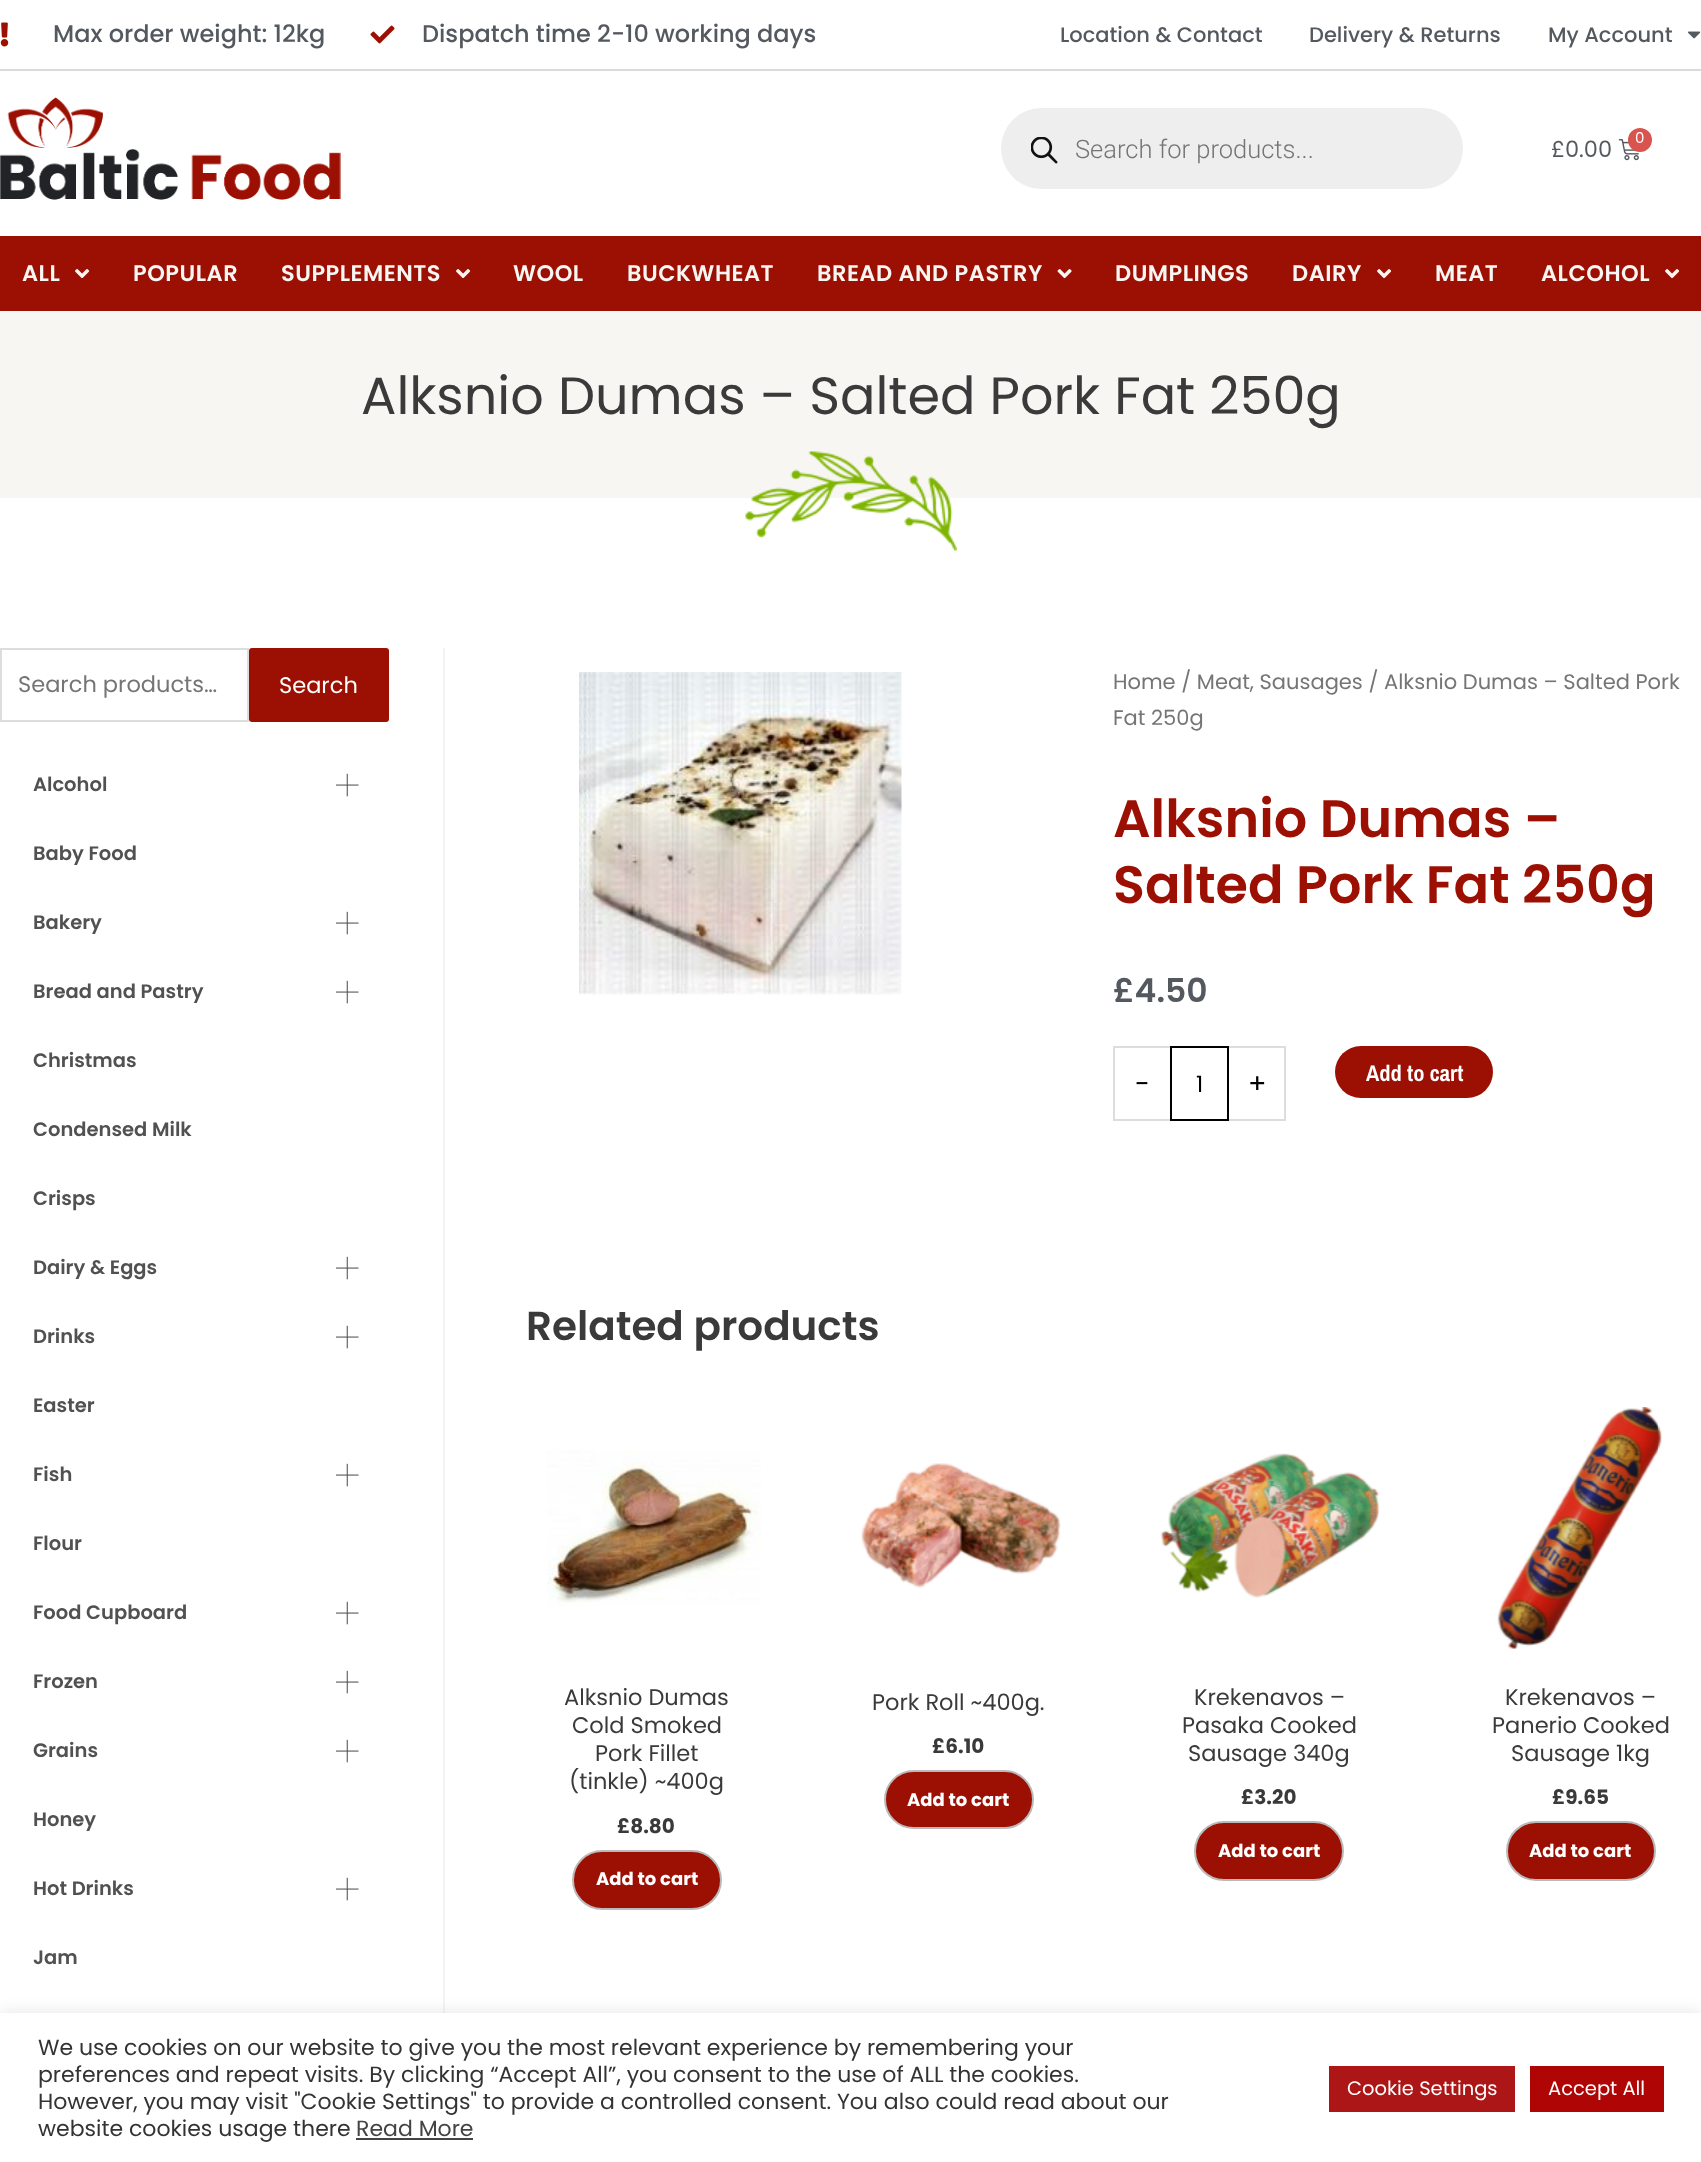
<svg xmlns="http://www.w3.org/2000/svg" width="1701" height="2162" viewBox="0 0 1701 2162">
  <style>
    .t1 { font: 500 24px Poppins; fill: #54595f; }
    .t2 { font: 500 21px Poppins; fill: #54595f; }
    .t3 { font: 300 25.5px Roboto; fill: #757575; }
    .t4 { font: 15px Poppins; fill: #fff; }
    .t5 { font: 22.5px Poppins; fill: #54595f; }
    .t6 { font: 600 22.5px Poppins; letter-spacing: 0.5px; fill: #f8f6f3; }
    .t7 { font: 52.5px Poppins; fill: #3a3a3a; }
    .t8 { font: 22.5px Poppins; fill: #757575; }
    .t9 { font: 22.5px Poppins; fill: #fff; }
    .t10 { font: 600 19.5px Poppins; fill: #515151; }
    .t11 { font: 21px Poppins; fill: #757575; }
    .t12 { font: 600 52.5px Poppins; fill: #9c1003; }
    .t13 { font: 600 33px Poppins; fill: #54595f; }
    .t14 { font: 27px Poppins; fill: #000; }
    .t15 { font: 22.5px Poppins; fill: #000; }
    .t16 { font: bold 22.5px Archivo Narrow; fill: #fff; }
    .t17 { font: 600 40.5px Poppins; fill: #3a3a3a; }
    .t18 { font: 22.5px Poppins; fill: #3a3a3a; }
    .t19 { font: bold 20px Poppins; fill: #3a3a3a; }
    .t20 { font: bold 18px Poppins; fill: #fff; }
    .t21 { font: 22px Poppins; fill: #333; }
    .t22 { font: 22px Poppins; fill: #444; }
    .t23 { font: 19.5px Poppins; fill: #fff; }
  </style>
  <rect width="100%" height="100%" fill="#fff"/>
  <rect x="0" y="69" width="1701" height="2" fill="#dadada"/>
  <image x="0" y="22" width="9" height="25" href="images/1.png"/>
  <text x="53" y="42" class="t1">Max order weight: 12kg</text>
  <image x="370" y="25" width="25" height="19" href="images/2.png"/>
  <text x="422" y="42" class="t1">Dispatch time 2-10 working days</text>
  <text x="1060" y="42" class="t2">Location &amp; Contact</text>
  <text x="1309" y="42" class="t2">Delivery &amp; Returns</text>
  <text x="1548" y="42" class="t2">My Account</text>
  <image x="1688" y="31" width="13" height="8" href="images/3.png"/>
  <image x="0" y="97" width="341" height="103" href="images/4.png"/>
  <rect x="1001" y="108" width="462" height="81" rx="40.5" fill="#eee"/>
  <image x="1031" y="137" width="27" height="27" href="images/5.png"/>
  <text x="1075" y="158" class="t3">Search for products...</text>
  <image x="1618" y="139" width="21" height="22" href="images/6.png"/>
  <circle cx="1640" cy="140" r="12" fill="#d9534f"/>
  <text x="1635" y="143" class="t4">0</text>
  <text x="1551" y="157" class="t5">£0.00</text>
  <rect x="0" y="236" width="1701" height="75" fill="#9c1003"/>
  <text x="22" y="281" class="t6">ALL</text>
  <image x="75" y="269" width="15" height="10" href="images/7.png"/>
  <text x="133" y="281" class="t6">POPULAR</text>
  <text x="281" y="281" class="t6">SUPPLEMENTS</text>
  <image x="456" y="269" width="15" height="10" href="images/7.png"/>
  <text x="513" y="281" class="t6">WOOL</text>
  <text x="627" y="281" class="t6">BUCKWHEAT</text>
  <text x="817" y="281" class="t6">BREAD AND PASTRY</text>
  <image x="1057" y="269" width="15" height="10" href="images/8.png"/>
  <text x="1115" y="281" class="t6">DUMPLINGS</text>
  <text x="1292" y="281" class="t6">DAIRY</text>
  <image x="1377" y="269" width="15" height="10" href="images/7.png"/>
  <text x="1435" y="281" class="t6">MEAT</text>
  <text x="1541" y="281" class="t6">ALCOHOL</text>
  <image x="1665" y="269" width="15" height="10" href="images/7.png"/>
  <rect x="0" y="311" width="1701" height="187" fill="#f8f6f3"/>
  <text x="361" y="414" class="t7">Alksnio Dumas – Salted Pork Fat 250g</text>
  <image x="745" y="451" width="212" height="100" href="images/9.png"/>
  <rect x="1" y="649" width="247" height="72" fill="none" stroke="#ddd" stroke-width="2"/>
  <text x="18" y="692" class="t8">Search products…</text>
  <rect x="249" y="648" width="140" height="74" rx="3" fill="#9c1003"/>
  <text x="279" y="693" class="t9">Search</text>
  <text x="33" y="791" class="t10">Alcohol</text>
  <image x="336" y="773" width="23" height="24" href="images/10.png"/>
  <text x="33" y="860" class="t10">Baby Food</text>
  <text x="33" y="929" class="t10">Bakery</text>
  <image x="336" y="911" width="23" height="24" href="images/10.png"/>
  <text x="33" y="998" class="t10">Bread and Pastry</text>
  <image x="336" y="980" width="23" height="24" href="images/10.png"/>
  <text x="33" y="1067" class="t10">Christmas</text>
  <text x="33" y="1136" class="t10">Condensed Milk</text>
  <text x="33" y="1205" class="t10">Crisps</text>
  <text x="33" y="1274" class="t10">Dairy &amp; Eggs</text>
  <image x="336" y="1256" width="23" height="24" href="images/10.png"/>
  <text x="33" y="1343" class="t10">Drinks</text>
  <image x="336" y="1325" width="23" height="24" href="images/10.png"/>
  <text x="33" y="1412" class="t10">Easter</text>
  <text x="33" y="1481" class="t10">Fish</text>
  <image x="336" y="1463" width="23" height="24" href="images/10.png"/>
  <text x="33" y="1550" class="t10">Flour</text>
  <text x="33" y="1619" class="t10">Food Cupboard</text>
  <image x="336" y="1601" width="23" height="24" href="images/10.png"/>
  <text x="33" y="1688" class="t10">Frozen</text>
  <image x="336" y="1670" width="23" height="24" href="images/10.png"/>
  <text x="33" y="1757" class="t10">Grains</text>
  <image x="336" y="1739" width="23" height="24" href="images/10.png"/>
  <text x="33" y="1826" class="t10">Honey</text>
  <text x="33" y="1895" class="t10">Hot Drinks</text>
  <image x="336" y="1877" width="23" height="24" href="images/10.png"/>
  <text x="33" y="1964" class="t10">Jam</text>
  <rect x="443" y="648" width="2" height="1365" fill="#f4f4f4"/>
  <image x="579" y="672" width="323" height="323" href="images/11.png"/>
  <text x="1113" y="689" class="t11">Home / Meat, Sausages / Alksnio Dumas – Salted Pork</text>
  <text x="1113" y="725" class="t11">Fat 250g</text>
  <text x="1113" y="837" class="t12">Alksnio Dumas –</text>
  <text x="1113" y="903" class="t12">Salted Pork Fat 250g</text>
  <text x="1113" y="1002" class="t13">£4.50</text>
  <rect x="1113" y="1046" width="57" height="2" fill="#ddd"/>
  <rect x="1113" y="1119" width="57" height="2" fill="#ddd"/>
  <rect x="1113" y="1046" width="2" height="75" fill="#ddd"/>
  <text x="1135" y="1093" class="t14">-</text>
  <rect x="1171" y="1047" width="57" height="73" fill="none" stroke="#000" stroke-width="2"/>
  <text x="1196" y="1092" class="t15">1</text>
  <rect x="1229" y="1046" width="57" height="2" fill="#ddd"/>
  <rect x="1284" y="1046" width="2" height="75" fill="#ddd"/>
  <rect x="1229" y="1119" width="57" height="2" fill="#ddd"/>
  <text x="1248" y="1093" class="t14">+</text>
  <rect x="1335" y="1046" width="158" height="52" rx="26" fill="#9c1003"/>
  <text x="1366" y="1081" class="t16">Add to cart</text>
  <text x="526" y="1340" class="t17">Related products</text>
  <image x="547" y="1450" width="214" height="156" href="images/12.png"/>
  <text x="564" y="1705" class="t18">Alksnio Dumas</text>
  <text x="572" y="1733" class="t18">Cold Smoked</text>
  <text x="595" y="1761" class="t18">Pork Fillet</text>
  <text x="569" y="1789" class="t18">(tinkle) ~400g</text>
  <text x="617" y="1833" class="t19">£8.80</text>
  <rect x="573" y="1851" width="148" height="58" rx="29" fill="#9c1003" stroke="#bababa" stroke-width="2"/>
  <text x="596" y="1885" class="t20">Add to cart</text>
  <image x="861" y="1463" width="200" height="125" href="images/13.png"/>
  <text x="872" y="1710" class="t18">Pork Roll ~400g.</text>
  <text x="932" y="1753" class="t19">£6.10</text>
  <rect x="885" y="1771" width="148" height="57" rx="28.5" fill="#9c1003" stroke="#bababa" stroke-width="2"/>
  <text x="907" y="1806" class="t20">Add to cart</text>
  <image x="1160" y="1453" width="220" height="145" href="images/14.png"/>
  <text x="1194" y="1705" class="t18">Krekenavos –</text>
  <text x="1182" y="1733" class="t18">Pasaka Cooked</text>
  <text x="1188" y="1761" class="t18">Sausage 340g</text>
  <text x="1241" y="1804" class="t19">£3.20</text>
  <rect x="1195" y="1822" width="148" height="58" rx="29" fill="#9c1003" stroke="#bababa" stroke-width="2"/>
  <text x="1218" y="1857" class="t20">Add to cart</text>
  <image x="1497" y="1407" width="165" height="242" href="images/15.png"/>
  <text x="1505" y="1705" class="t18">Krekenavos –</text>
  <text x="1492" y="1733" class="t18">Panerio Cooked</text>
  <text x="1511" y="1761" class="t18">Sausage 1kg</text>
  <text x="1552" y="1804" class="t19">£9.65</text>
  <rect x="1507" y="1822" width="148" height="58" rx="29" fill="#9c1003" stroke="#bababa" stroke-width="2"/>
  <text x="1529" y="1857" class="t20">Add to cart</text>
  <rect x="0" y="2012" width="1701" height="150" fill="#acabab4d" filter="blur(7.5px)"/>
  <rect x="0" y="2013" width="1701" height="149" fill="#fff"/>
  <text x="38" y="2055" class="t21">We use cookies on our website to give you the most relevant experience by remembering your</text>
  <text x="38" y="2082" class="t21">preferences and repeat visits. By clicking “Accept All”, you consent to the use of ALL the cookies.</text>
  <text x="38" y="2109" class="t21">However, you may visit "Cookie Settings" to provide a controlled consent. You also could read about our</text>
  <text x="38" y="2136" class="t21">website cookies usage there</text>
  <text x="356" y="2136" class="t22">Read More</text>
  <rect x="356" y="2138" width="117" height="2" fill="#444"/>
  <rect x="1329" y="2066" width="186" height="46" fill="#ad1616"/>
  <text x="1347" y="2095" class="t23">Cookie Settings</text>
  <rect x="1530" y="2066" width="134" height="46" fill="#af0505"/>
  <text x="1548" y="2095" class="t23">Accept All</text>
</svg>
